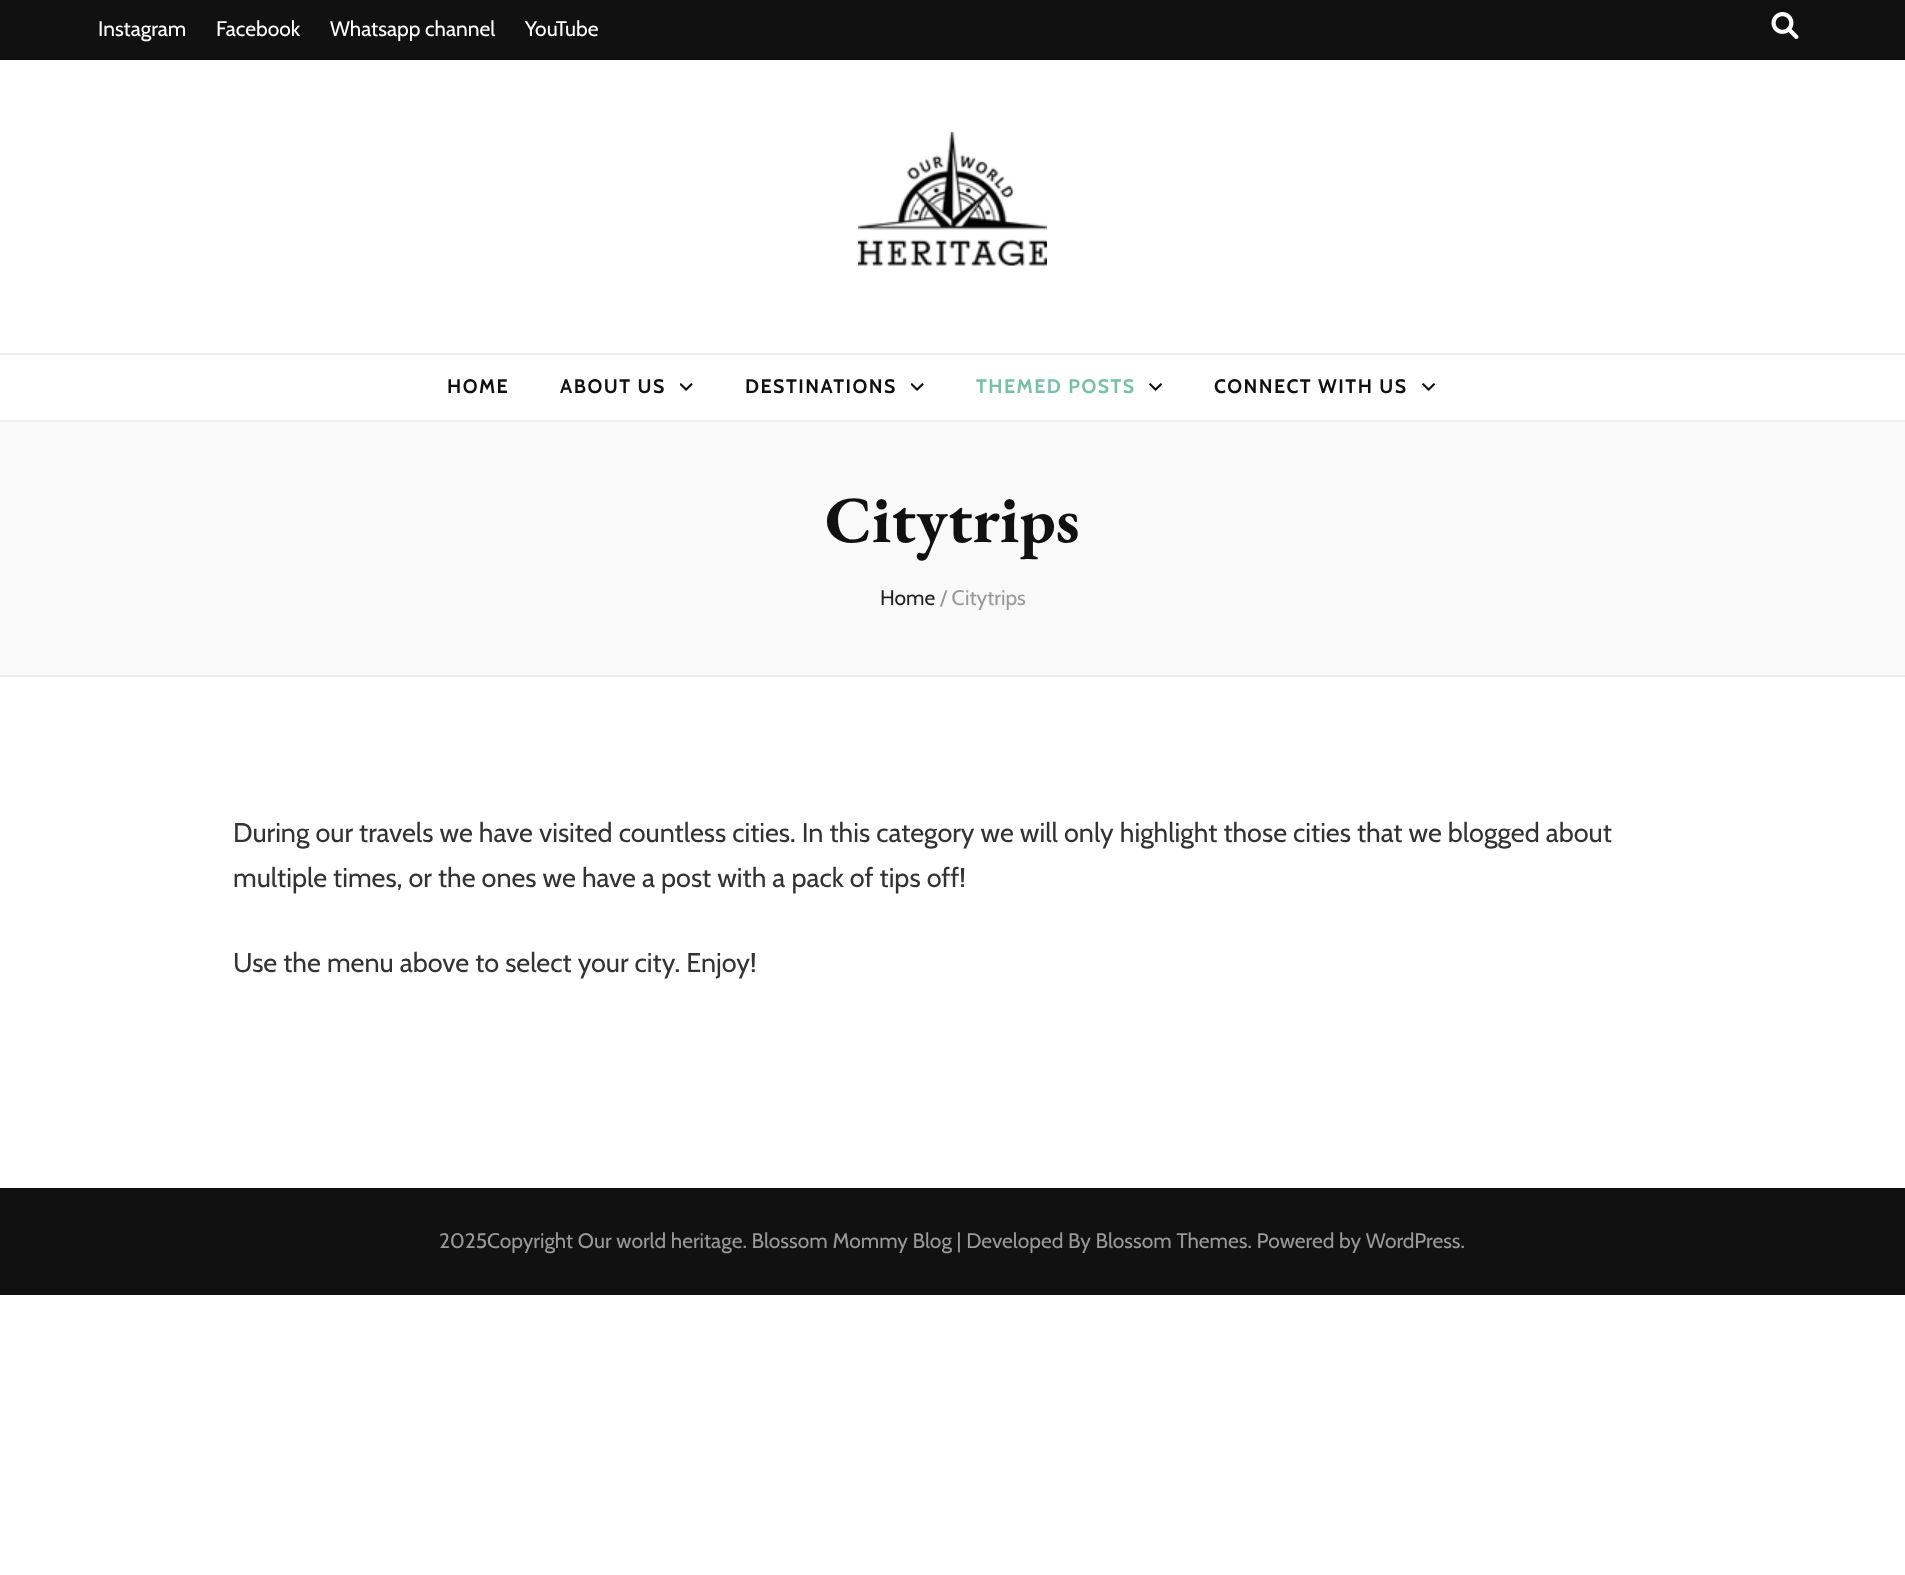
<svg xmlns="http://www.w3.org/2000/svg" width="1905" height="1575" viewBox="0 0 1905 1575">
  <style>
    .t1 { font: 21px Cabin; fill: #fff; }
    .t2 { font: bold 19.5px Cabin; letter-spacing: 1.5px; fill: #111; }
    .t3 { font: bold 19.5px Cabin; letter-spacing: 1.5px; fill: #78c0a8; }
    .t4 { font: bold 66px EB Garamond; fill: #111; }
    .t5 { font: 21px Cabin; fill: #222; }
    .t6 { font: 21px Cabin; fill: #999; }
    .t7 { font: 27px Cabin; fill: #333; }
  </style>
  <rect width="100%" height="100%" fill="#fff"/>
  <rect x="0" y="0" width="1905" height="60" fill="#111"/>
  <text x="98" y="36" class="t1">Instagram</text>
  <text x="216" y="36" class="t1">Facebook</text>
  <text x="330" y="36" class="t1">Whatsapp channel</text>
  <text x="525" y="36" class="t1">YouTube</text>
  <image x="1771" y="12" width="28" height="27" href="images/1.png"/>
  <image x="858" y="132" width="189" height="134" href="images/2.png"/>
  <rect x="0" y="353" width="1905" height="2" fill="#eee"/>
  <rect x="0" y="420" width="1905" height="2" fill="#eee"/>
  <text x="447" y="393" class="t2">HOME</text>
  <text x="560" y="393" class="t2">ABOUT US</text>
  <image x="680" y="383" width="13" height="8" href="images/3.png"/>
  <text x="745" y="393" class="t2">DESTINATIONS</text>
  <image x="911" y="383" width="13" height="8" href="images/3.png"/>
  <text x="976" y="393" class="t3">THEMED POSTS</text>
  <image x="1149" y="383" width="14" height="8" href="images/4.png"/>
  <text x="1214" y="393" class="t2">CONNECT WITH US</text>
  <image x="1422" y="383" width="14" height="8" href="images/4.png"/>
  <rect x="0" y="422" width="1905" height="253" fill="#f9f9f9"/>
  <rect x="0" y="675" width="1905" height="2" fill="#eee"/>
  <text x="825" y="542" class="t4">Citytrips</text>
  <text x="880" y="605" class="t5">Home</text>
  <text x="940" y="605" class="t6">/ Citytrips</text>
  <text x="233" y="842" class="t7">During our travels we have visited countless cities. In this category we will only highlight those cities that we blogged about</text>
  <text x="233" y="887" class="t7">multiple times, or the ones we have a post with a pack of tips off!</text>
  <text x="233" y="972" class="t7">Use the menu above to select your city. Enjoy!</text>
  <rect x="0" y="1188" width="1905" height="107" fill="#111"/>
  <text x="439" y="1248" class="t6">2025Copyright Our world heritage. Blossom Mommy Blog | Developed By Blossom Themes. Powered by WordPress.</text>
</svg>
